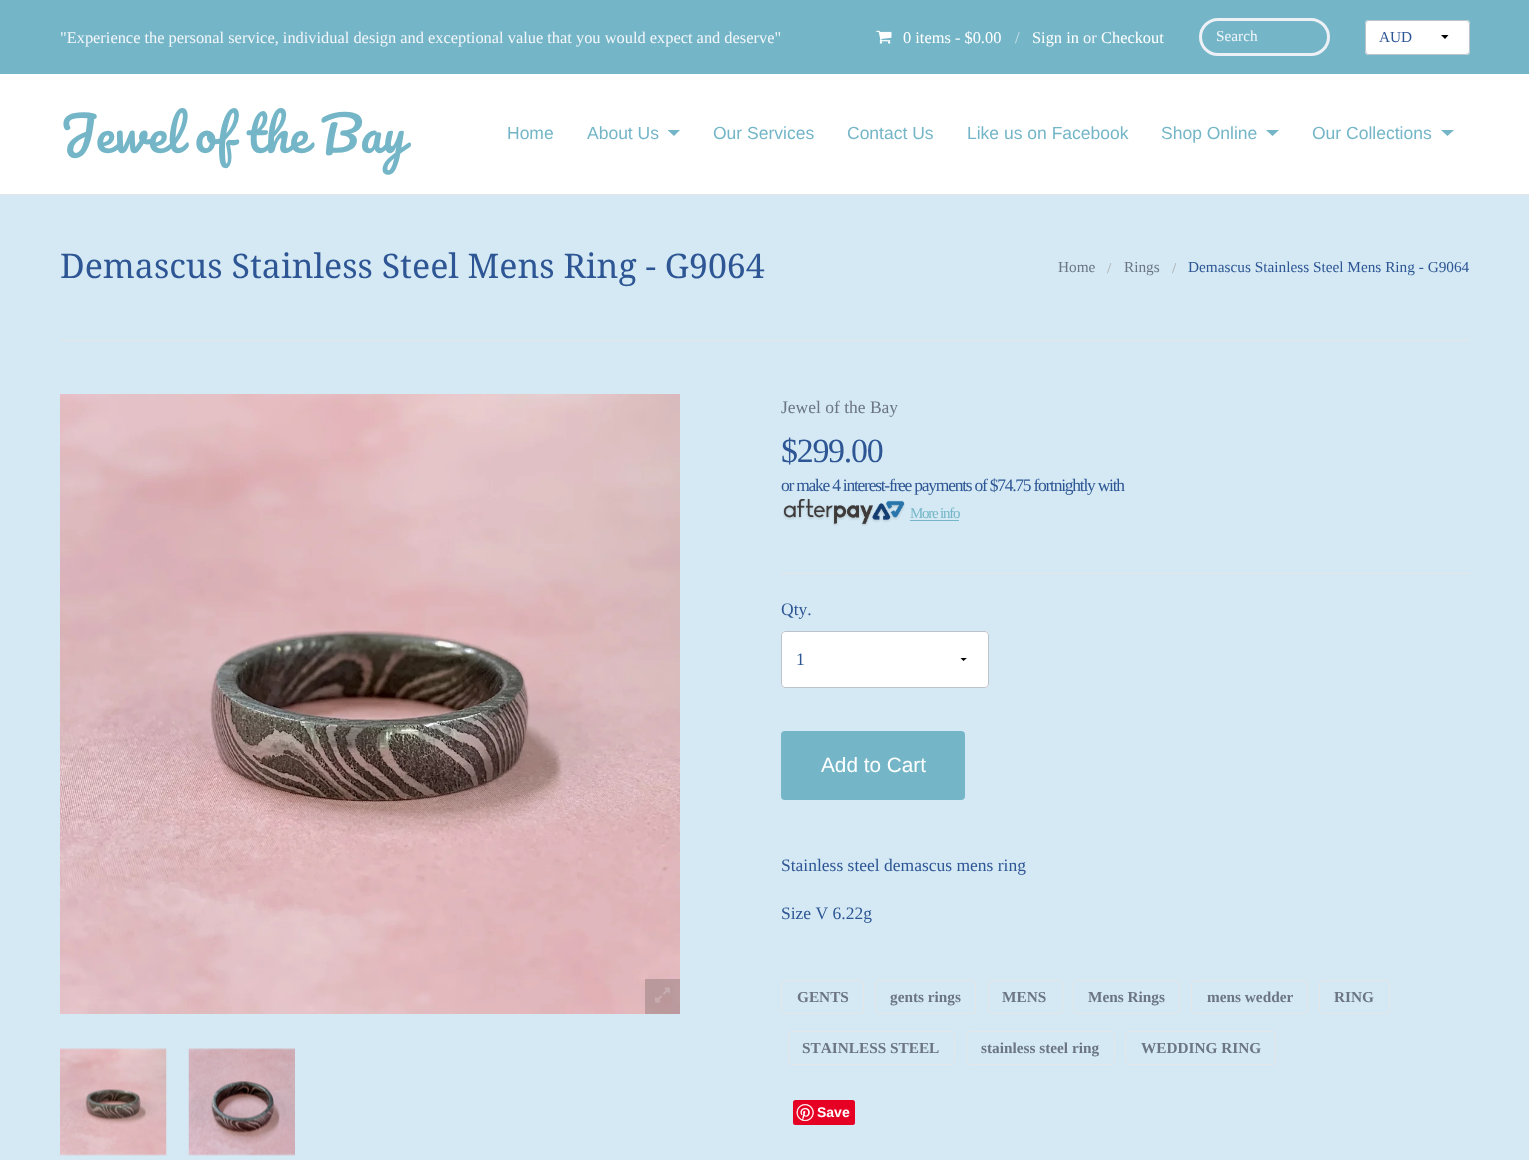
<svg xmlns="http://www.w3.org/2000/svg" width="1529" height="1160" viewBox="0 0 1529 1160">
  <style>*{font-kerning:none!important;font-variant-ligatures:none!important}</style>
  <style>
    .t1 { font: 16.4px Liberation Serif; fill: #f3f6fb; }
    .t2 { font: 16.4px Liberation Serif; fill: #fff; }
    .t3 { font: 16.4px Liberation Serif; fill: #cde3eb; }
    .t4 { font: 15.3px Liberation Serif; fill: #f3f6fb; }
    .t5 { font: 15.3px Liberation Serif; fill: #2e5694; }
    .t6 { font: 48px Pacifico; fill: #74b6c7; }
    .t7 { font: 17.5px Liberation Sans; fill: #74b6c7; }
    .t8 { font: 33.9px Droid Serif; fill: #2e5694; }
    .t9 { font: 15.3px Liberation Serif; fill: #6c7683; }
    .t10 { font: 15.3px Liberation Serif; fill: #aaa; }
    .t11 { font: 17.5px Liberation Serif; fill: #6c7683; }
    .t12 { font: 33.9px Liberation Serif; letter-spacing: -1.25px; fill: #2e5694; }
    .t13 { font: 17.5px Liberation Serif; letter-spacing: -1.25px; fill: #2e5694; }
    .t14 { font: 15px Liberation Serif; letter-spacing: -1.25px; fill: #74b6c7; }
    .t15 { font: 17.5px Liberation Serif; fill: #2e5694; }
    .t16 { font: 20.75px Liberation Sans; fill: #fff; }
    .t17 { font: bold 15.3px Liberation Serif; fill: #6c7683; }
    .t18 { font: bold 14px Liberation Sans; fill: #fff; }
  </style>
  <defs>
    <clipPath id="clip1"><rect x="949" y="658" width="30" height="4"/></clipPath>
  </defs>
  <rect width="100%" height="100%" fill="#74b6c7"/>
  <text x="60" y="43" class="t1">"Experience the personal service, individual design and exceptional value that you would expect and deserve"</text>
  <image x="876" y="30" width="16" height="14" href="images/1.png"/>
  <text x="903" y="43" class="t2">0 items - $0.00</text>
  <text x="1015" y="43" class="t3">/</text>
  <text x="1032" y="43" class="t2">Sign in</text>
  <text x="1083" y="43" class="t1">or</text>
  <text x="1101" y="43" class="t2">Checkout</text>
  <rect x="1200.5" y="19.5" width="128" height="35" rx="17.5" fill="none" stroke="#edf1f6" stroke-width="3"/>
  <text x="1216" y="41" class="t4">Search</text>
  <rect x="1365" y="20" width="105" height="35" rx="4" fill="#fff"/>
  <path d="M1448.5 35L1445 39L1441 35Z" fill="#000"/>
  <rect x="1365.5" y="20.5" width="104" height="34" rx="3.5" fill="none" stroke="#bcc3ca"/>
  <text x="1379" y="42" class="t5">AUD</text>
  <rect x="0" y="74" width="1529" height="120" fill="#fff"/>
  <rect x="0" y="194" width="1529" height="1" fill="#e4e5e6"/>
  <text x="60" y="153" word-spacing="-0.5" class="t6">Jewel of the Bay</text>
  <text x="507" y="139" class="t7">Home</text>
  <text x="587" y="139" class="t7">About Us</text>
  <path d="M667.5 130H680L674 136Z" fill="#74b6c7"/>
  <text x="713" y="139" class="t7">Our Services</text>
  <text x="847" y="139" class="t7">Contact Us</text>
  <text x="967" y="139" class="t7">Like us on Facebook</text>
  <text x="1161" y="139" class="t7">Shop Online</text>
  <path d="M1266 130H1279L1272.5 136Z" fill="#74b6c7"/>
  <text x="1312" y="139" class="t7">Our Collections</text>
  <path d="M1441 130H1454L1447.5 136Z" fill="#74b6c7"/>
  <rect x="0" y="195" width="1529" height="965" fill="#d4e9f4"/>
  <rect x="60" y="340" width="1410" height="1" fill="#e5e6e7"/>
  <text x="60" y="278" class="t8">Demascus Stainless Steel Mens Ring - G9064</text>
  <text x="1058" y="272" class="t9">Home</text>
  <text x="1107" y="273" class="t10">/</text>
  <text x="1124" y="272" class="t9">Rings</text>
  <text x="1172" y="273" class="t10">/</text>
  <text x="1188" y="272" class="t5">Demascus Stainless Steel Mens Ring - G9064</text>
  <image x="60" y="394" width="620" height="620" href="images/2.png"/>
  <rect x="645" y="979" width="35" height="35" fill="#22222233"/>
  <image x="655" y="987" width="15" height="16" href="images/3.png"/>
  <image x="60" y="1048" width="107" height="108" href="images/4.png"/>
  <image x="188" y="1048" width="107" height="108" href="images/5.png"/>
  <text x="781" y="413" class="t11">Jewel of the Bay</text>
  <rect x="781" y="573" width="689" height="1" fill="#e5e6e7"/>
  <text x="781" y="462" class="t12">$299.00</text>
  <text x="781" y="491" class="t13">or make 4 interest-free payments of $74.75 fortnightly with</text>
  <image x="783" y="499" width="122" height="27" href="images/6.png"/>
  <text x="910" y="518" class="t14">More info</text>
  <rect x="910" y="520" width="49" height="1" fill="#74b6c7"/>
  <text x="781" y="615" class="t15">Qty.</text>
  <rect x="781" y="631" width="208" height="57" rx="4" fill="#fff"/>
  <g clip-path="url(#clip1)">
    <path d="M967.5 657.5L963.5 661L960 657.5Z" fill="#000"/>
  </g>
  <rect x="781.5" y="631.5" width="207" height="56" rx="3.5" fill="none" stroke="#bcc3ca"/>
  <text x="796" y="665" class="t15">1</text>
  <rect x="781" y="731" width="184" height="69" rx="4" fill="#74b6c7"/>
  <text x="821" y="772" class="t16">Add to Cart</text>
  <text x="781" y="871" class="t15">Stainless steel demascus mens ring</text>
  <text x="781" y="919" class="t15">Size V 6.22g</text>
  <rect x="781.5" y="980.5" width="82" height="33" rx="3.5" fill="none" stroke="#e5e6e7"/>
  <text x="797" y="1002" class="t17">GENTS</text>
  <rect x="875.5" y="980.5" width="100" height="33" rx="3.5" fill="none" stroke="#e5e6e7"/>
  <text x="890" y="1002" class="t17">gents rings</text>
  <rect x="988.5" y="980.5" width="74" height="33" rx="3.5" fill="none" stroke="#e5e6e7"/>
  <text x="1002" y="1002" class="t17">MENS</text>
  <rect x="1073.5" y="980.5" width="106" height="33" rx="3.5" fill="none" stroke="#e5e6e7"/>
  <text x="1088" y="1002" class="t17">Mens Rings</text>
  <rect x="1191.5" y="980.5" width="116" height="33" rx="3.5" fill="none" stroke="#e5e6e7"/>
  <text x="1207" y="1002" class="t17">mens wedder</text>
  <rect x="1319.5" y="980.5" width="70" height="33" rx="3.5" fill="none" stroke="#e5e6e7"/>
  <text x="1334" y="1002" class="t17">RING</text>
  <rect x="788.5" y="1031.5" width="166" height="33" rx="3.5" fill="none" stroke="#e5e6e7"/>
  <text x="802" y="1053" class="t17">STAINLESS STEEL</text>
  <rect x="966.5" y="1031.5" width="148" height="33" rx="3.5" fill="none" stroke="#e5e6e7"/>
  <text x="981" y="1053" class="t17">stainless steel ring</text>
  <rect x="1125.5" y="1031.5" width="150" height="33" rx="3.5" fill="none" stroke="#e5e6e7"/>
  <text x="1141" y="1053" class="t17">WEDDING RING</text>
  <rect x="793" y="1100" width="62" height="25" rx="2.5" fill="#e60023"/>
  <image x="796" y="1104" width="18" height="17" href="images/7.png"/>
  <text x="817" y="1117" class="t18">Save</text>
</svg>
